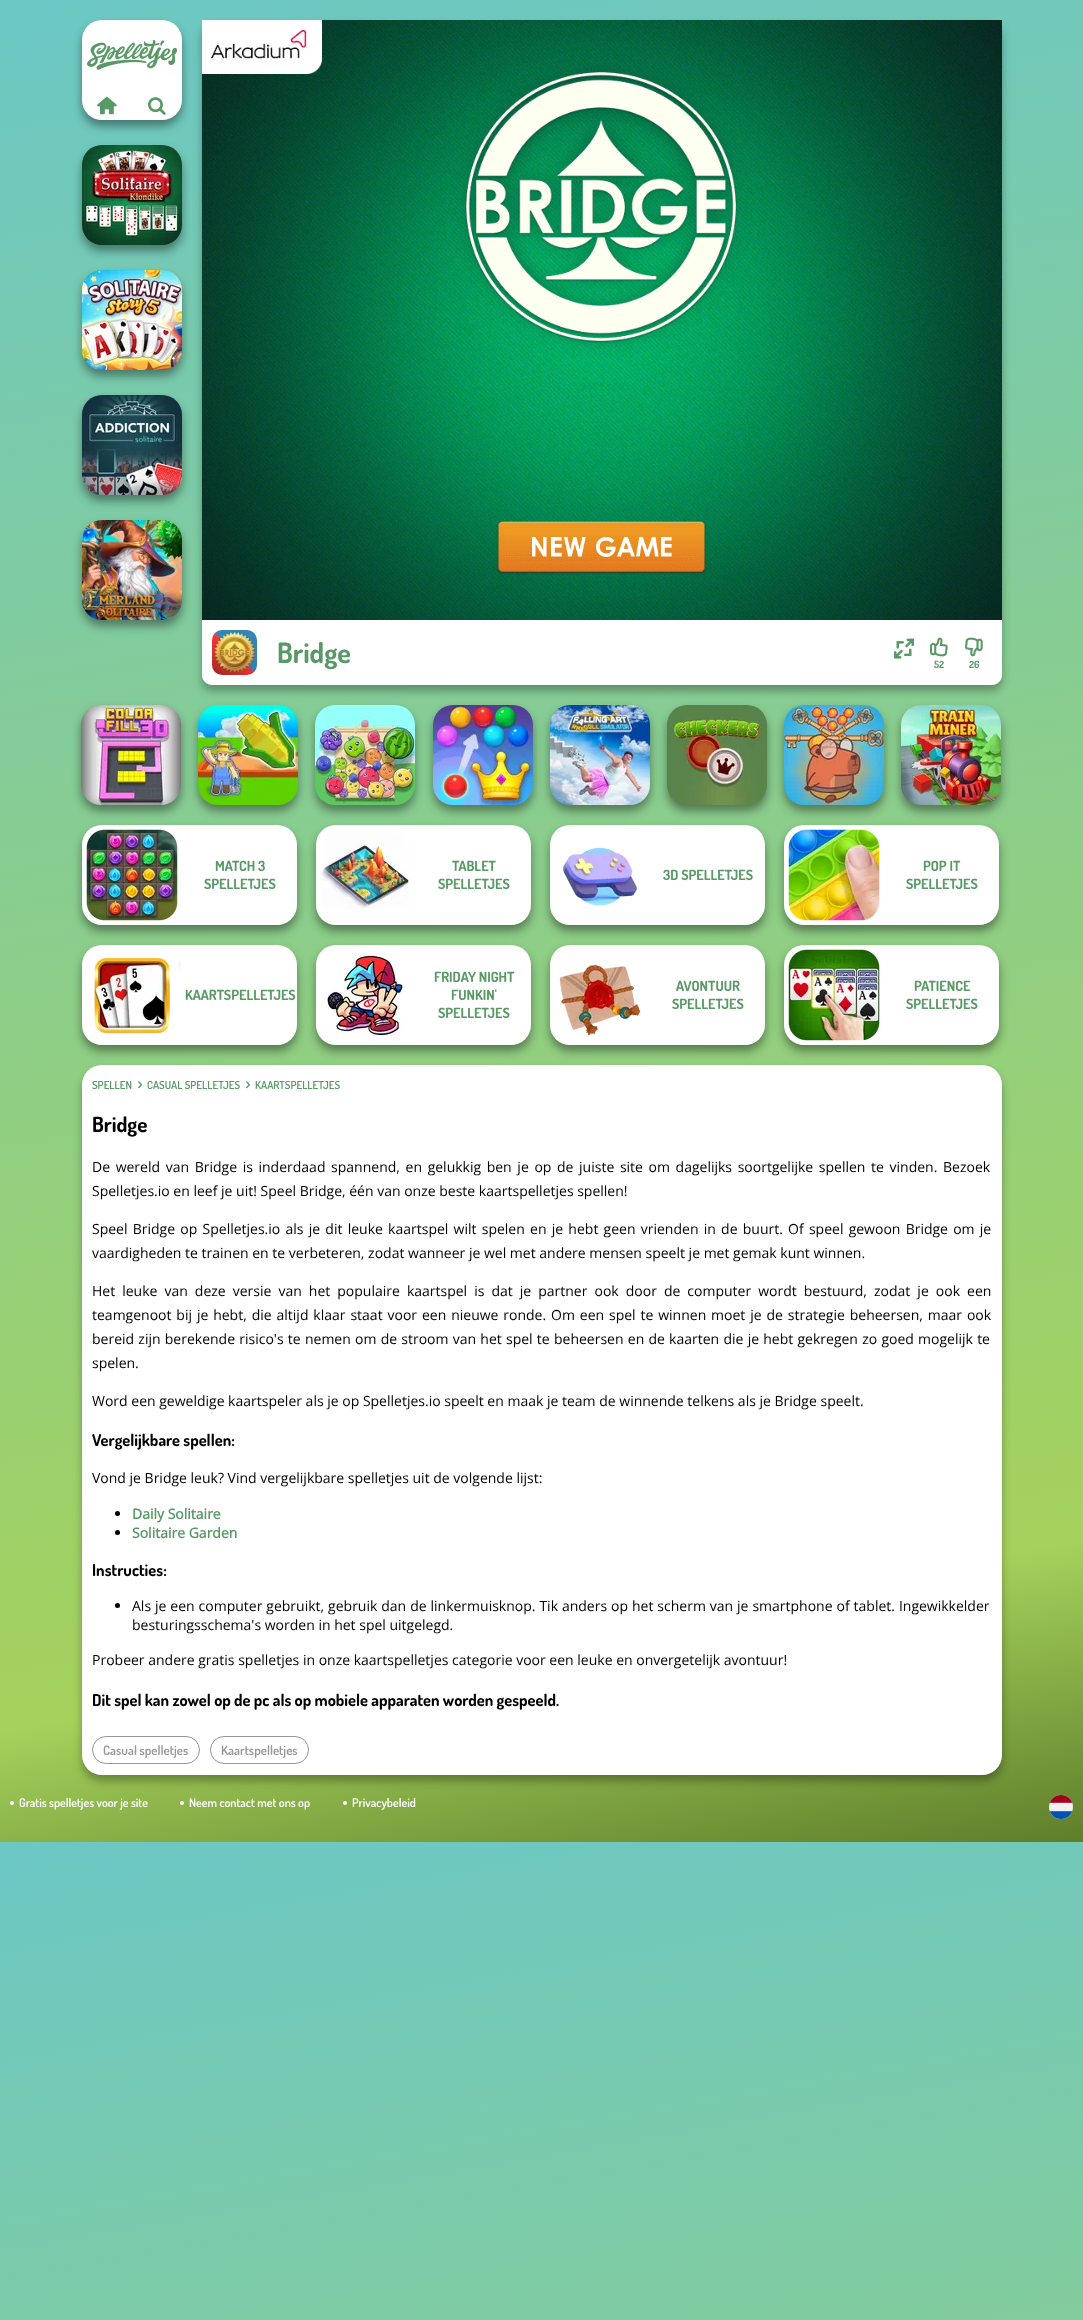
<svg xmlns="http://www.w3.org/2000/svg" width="1083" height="2320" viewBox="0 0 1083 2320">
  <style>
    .t1 { font: bold 28px Dosis; fill: #599966; }
    .t2 { font: bold 10px Dosis; fill: #599966; }
    .t3 { font: bold 14px Dosis; fill: #599966; }
    .t4 { font: 600 11px Dosis; fill: #599966; }
    .t5 { font: bold 21px Dosis; fill: #000; }
    .t6 { font: 14px Open Sans; fill: #000; }
    .t7 { font: bold 16.4px Dosis; fill: #000; }
    .t8 { font: bold 14px Open Sans; fill: #599966; }
    .t9 { font: 600 13px Dosis; fill: #979797; }
    .t10 { font: 600 12px Dosis; fill: #fff; }
  </style>
  <defs>
    <linearGradient id="g1" gradientUnits="userSpaceOnUse" x1="368" y1="-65" x2="715" y2="1907"><stop offset="0" stop-color="#6cc8c5"/><stop offset="0.85" stop-color="#a5d25c"/><stop offset="1" stop-color="#5f7e2a"/></linearGradient>
    <linearGradient id="g2" gradientUnits="userSpaceOnUse" x1="368" y1="1777" x2="715" y2="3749"><stop offset="0" stop-color="#6cc8c5"/><stop offset="0.85" stop-color="#a5d25c"/><stop offset="1" stop-color="#5f7e2a"/></linearGradient>
    <linearGradient id="g3" gradientUnits="userSpaceOnUse" x1="369" y1="-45" x2="714" y2="1907"><stop offset="0" stop-color="#6cc8c5"/><stop offset="0.85" stop-color="#a5d25c"/><stop offset="1" stop-color="#5f7e2a"/></linearGradient>
  </defs>
  <rect width="100%" height="100%" fill="#fff"/>
  <rect x="0" y="0" width="1083" height="20" fill="url(#g1)"/>
  <rect x="0" y="1842" width="1083" height="478" fill="url(#g2)"/>
  <rect x="0" y="20" width="1083" height="1822" fill="url(#g3)"/>
  <rect x="82" y="26" width="100" height="100" rx="20" fill="#00000066" filter="blur(5px)"/>
  <rect x="82" y="20" width="100" height="100" rx="20" fill="#fff"/>
  <image x="87" y="40" width="90" height="30" href="images/1.png"/>
  <image x="97" y="96" width="20" height="19" href="images/2.png"/>
  <image x="148" y="97" width="18" height="18" href="images/3.png"/>
  <rect x="82" y="151" width="100" height="100" rx="20" fill="#00000066" filter="blur(5px)"/>
  <image x="82" y="145" width="100" height="100" href="images/4.png"/>
  <rect x="82" y="276" width="100" height="100" rx="20" fill="#00000066" filter="blur(5px)"/>
  <image x="82" y="270" width="100" height="100" href="images/5.png"/>
  <rect x="82" y="401" width="100" height="100" rx="20" fill="#00000066" filter="blur(5px)"/>
  <image x="82" y="395" width="100" height="100" href="images/6.png"/>
  <rect x="82" y="526" width="100" height="100" rx="20" fill="#00000066" filter="blur(5px)"/>
  <image x="82" y="520" width="100" height="100" href="images/7.png"/>
  <rect x="202" y="26" width="800" height="665" rx="10" fill="#0000004d" filter="blur(4px)"/>
  <image x="202" y="20" width="800" height="600" href="images/8.png"/>
  <path d="M202 620H1002V675C1002 680.5 997.5 685 992 685H212C206.5 685 202 680.5 202 675Z" fill="#fff"/>
  <image x="212" y="630" width="45" height="45" href="images/9.png"/>
  <text x="277" y="663" class="t1">Bridge</text>
  <image x="894" y="638" width="20" height="21" href="images/10.png"/>
  <image x="930" y="637" width="18" height="20" href="images/11.png"/>
  <text x="934" y="668" class="t2">52</text>
  <image x="965" y="637" width="18" height="20" href="images/12.png"/>
  <text x="969" y="668" class="t2">26</text>
  <rect x="81" y="711" width="100" height="100" rx="20" fill="#00000066" filter="blur(5px)"/>
  <image x="81" y="705" width="100" height="100" href="images/13.png"/>
  <rect x="198" y="711" width="100" height="100" rx="20" fill="#00000066" filter="blur(5px)"/>
  <image x="198" y="705" width="100" height="100" href="images/14.png"/>
  <rect x="315" y="711" width="100" height="100" rx="20" fill="#00000066" filter="blur(5px)"/>
  <image x="315" y="705" width="100" height="100" href="images/15.png"/>
  <rect x="433" y="711" width="100" height="100" rx="20" fill="#00000066" filter="blur(5px)"/>
  <image x="433" y="705" width="100" height="100" href="images/16.png"/>
  <rect x="550" y="711" width="100" height="100" rx="20" fill="#00000066" filter="blur(5px)"/>
  <image x="550" y="705" width="100" height="100" href="images/17.png"/>
  <rect x="667" y="711" width="100" height="100" rx="20" fill="#00000066" filter="blur(5px)"/>
  <image x="667" y="705" width="100" height="100" href="images/18.png"/>
  <rect x="784" y="711" width="100" height="100" rx="20" fill="#00000066" filter="blur(5px)"/>
  <image x="784" y="705" width="100" height="100" href="images/19.png"/>
  <rect x="901" y="711" width="100" height="100" rx="20" fill="#00000066" filter="blur(5px)"/>
  <image x="901" y="705" width="100" height="100" href="images/20.png"/>
  <rect x="82" y="831" width="215" height="100" rx="20" fill="#00000066" filter="blur(5px)"/>
  <rect x="82" y="825" width="215" height="100" rx="20" fill="#fff"/>
  <image x="86" y="829" width="92" height="92" href="images/21.png"/>
  <text x="215" y="871" class="t3">MATCH 3</text>
  <text x="204" y="889" class="t3">SPELLETJES</text>
  <rect x="316" y="831" width="215" height="100" rx="20" fill="#00000066" filter="blur(5px)"/>
  <rect x="316" y="825" width="215" height="100" rx="20" fill="#fff"/>
  <image x="321" y="830" width="90" height="79" href="images/22.png"/>
  <text x="452" y="871" class="t3">TABLET</text>
  <text x="438" y="889" class="t3">SPELLETJES</text>
  <rect x="550" y="831" width="215" height="100" rx="20" fill="#00000066" filter="blur(5px)"/>
  <rect x="550" y="825" width="215" height="100" rx="20" fill="#fff"/>
  <image x="563" y="847" width="75" height="59" href="images/23.png"/>
  <text x="663" y="880" class="t3">3D SPELLETJES</text>
  <rect x="784" y="831" width="215" height="100" rx="20" fill="#00000066" filter="blur(5px)"/>
  <rect x="784" y="825" width="215" height="100" rx="20" fill="#fff"/>
  <image x="788" y="829" width="92" height="92" href="images/24.png"/>
  <text x="923" y="871" class="t3">POP IT</text>
  <text x="906" y="889" class="t3">SPELLETJES</text>
  <rect x="82" y="1071" width="920" height="710" rx="20" fill="#0000004d" filter="blur(4px)"/>
  <rect x="82" y="1065" width="920" height="710" rx="20" fill="#fff"/>
  <rect x="82" y="951" width="215" height="100" rx="20" fill="#00000066" filter="blur(5px)"/>
  <rect x="82" y="945" width="215" height="100" rx="20" fill="#fff"/>
  <image x="82" y="957" width="99" height="77" href="images/25.png"/>
  <text x="185" y="1000" class="t3">KAARTSPELLETJES</text>
  <rect x="316" y="951" width="215" height="100" rx="20" fill="#00000066" filter="blur(5px)"/>
  <rect x="316" y="945" width="215" height="100" rx="20" fill="#fff"/>
  <image x="324" y="953" width="80" height="84" href="images/26.png"/>
  <text x="434" y="982" class="t3">FRIDAY NIGHT</text>
  <text x="451" y="1000" class="t3">FUNKIN'</text>
  <text x="438" y="1018" class="t3">SPELLETJES</text>
  <rect x="550" y="951" width="215" height="100" rx="20" fill="#00000066" filter="blur(5px)"/>
  <rect x="550" y="945" width="215" height="100" rx="20" fill="#fff"/>
  <image x="559" y="964" width="82" height="72" href="images/27.png"/>
  <text x="676" y="991" class="t3">AVONTUUR</text>
  <text x="672" y="1009" class="t3">SPELLETJES</text>
  <rect x="784" y="951" width="215" height="100" rx="20" fill="#00000066" filter="blur(5px)"/>
  <rect x="784" y="945" width="215" height="100" rx="20" fill="#fff"/>
  <image x="788" y="949" width="92" height="92" href="images/28.png"/>
  <text x="914" y="991" class="t3">PATIENCE</text>
  <text x="906" y="1009" class="t3">SPELLETJES</text>
  <text x="92" y="1089" class="t4">SPELLEN</text>
  <image x="138" y="1081" width="4" height="8" href="images/29.png"/>
  <text x="147" y="1089" class="t4">CASUAL SPELLETJES</text>
  <image x="246" y="1081" width="4" height="8" href="images/29.png"/>
  <text x="255" y="1089" class="t4">KAARTSPELLETJES</text>
  <text x="92" y="1132" class="t5">Bridge</text>
  <text x="92" y="1172" word-spacing="2" class="t6">De wereld van Bridge is inderdaad spannend, en gelukkig ben je op de juiste site om dagelijks soortgelijke spellen te vinden. Bezoek</text>
  <text x="92" y="1196" class="t6">Spelletjes.io en leef je uit! Speel Bridge, één van onze beste kaartspelletjes spellen!</text>
  <text x="92" y="1234" word-spacing="1.6" class="t6">Speel Bridge op Spelletjes.io als je dit leuke kaartspel wilt spelen en je hebt geen vrienden in de buurt. Of speel gewoon Bridge om je</text>
  <text x="92" y="1258" class="t6">vaardigheden te trainen en te verbeteren, zodat wanneer je wel met andere mensen speelt je met gemak kunt winnen.</text>
  <text x="92" y="1296" word-spacing="3.4" class="t6">Het leuke van deze versie van het populaire kaartspel is dat je partner ook door de computer wordt bestuurd, zodat je ook een</text>
  <text x="92" y="1320" word-spacing="1.25" class="t6">teamgenoot bij je hebt, die altijd klaar staat voor een nieuwe ronde. Om een spel te winnen moet je de strategie beheersen, maar ook</text>
  <text x="92" y="1344" word-spacing="0.6" class="t6">bereid zijn berekende risico's te nemen om de stroom van het spel te beheersen en de kaarten die je hebt gekregen zo goed mogelijk te</text>
  <text x="92" y="1368" class="t6">spelen.</text>
  <text x="92" y="1406" class="t6">Word een geweldige kaartspeler als je op Spelletjes.io speelt en maak je team de winnende telkens als je Bridge speelt.</text>
  <text x="92" y="1446" class="t7">Vergelijkbare spellen:</text>
  <text x="92" y="1483" class="t6">Vond je Bridge leuk? Vind vergelijkbare spelletjes uit de volgende lijst:</text>
  <circle cx="117.5" cy="1513.5" r="2.5" fill="#000"/>
  <text x="132" y="1519" class="t8">Daily Solitaire</text>
  <circle cx="117.5" cy="1532.5" r="2.5" fill="#000"/>
  <text x="132" y="1538" class="t8">Solitaire Garden</text>
  <text x="92" y="1576" class="t7">Instructies:</text>
  <circle cx="117.5" cy="1605.5" r="2.5" fill="#000"/>
  <text x="132" y="1611" word-spacing="0.3" class="t6">Als je een computer gebruikt, gebruik dan de linkermuisknop. Tik anders op het scherm van je smartphone of tablet. Ingewikkelder</text>
  <text x="132" y="1630" class="t6">besturingsschema's worden in het spel uitgelegd.</text>
  <text x="92" y="1665" class="t6">Probeer andere gratis spelletjes in onze kaartspelletjes categorie voor een leuke en onvergetelijk avontuur!</text>
  <text x="92" y="1706" class="t7">Dit spel kan zowel op de pc als op mobiele apparaten worden gespeeld.</text>
  <rect x="92.5" y="1736.5" width="107" height="27" rx="13.5" fill="none" stroke="#979797"/>
  <text x="103" y="1755" class="t9">Casual spelletjes</text>
  <rect x="210.5" y="1736.5" width="98" height="27" rx="13.5" fill="none" stroke="#979797"/>
  <text x="221" y="1755" class="t9">Kaartspelletjes</text>
  <circle cx="12" cy="1803" r="2" fill="#fff"/>
  <text x="19" y="1807" class="t10">Gratis spelletjes voor je site</text>
  <circle cx="182" cy="1803" r="2" fill="#fff"/>
  <text x="189" y="1807" class="t10">Neem contact met ons op</text>
  <circle cx="345" cy="1803" r="2" fill="#fff"/>
  <text x="352" y="1807" class="t10">Privacybeleid</text>
  <image x="1049" y="1795" width="24" height="24" href="images/30.png"/>
</svg>
